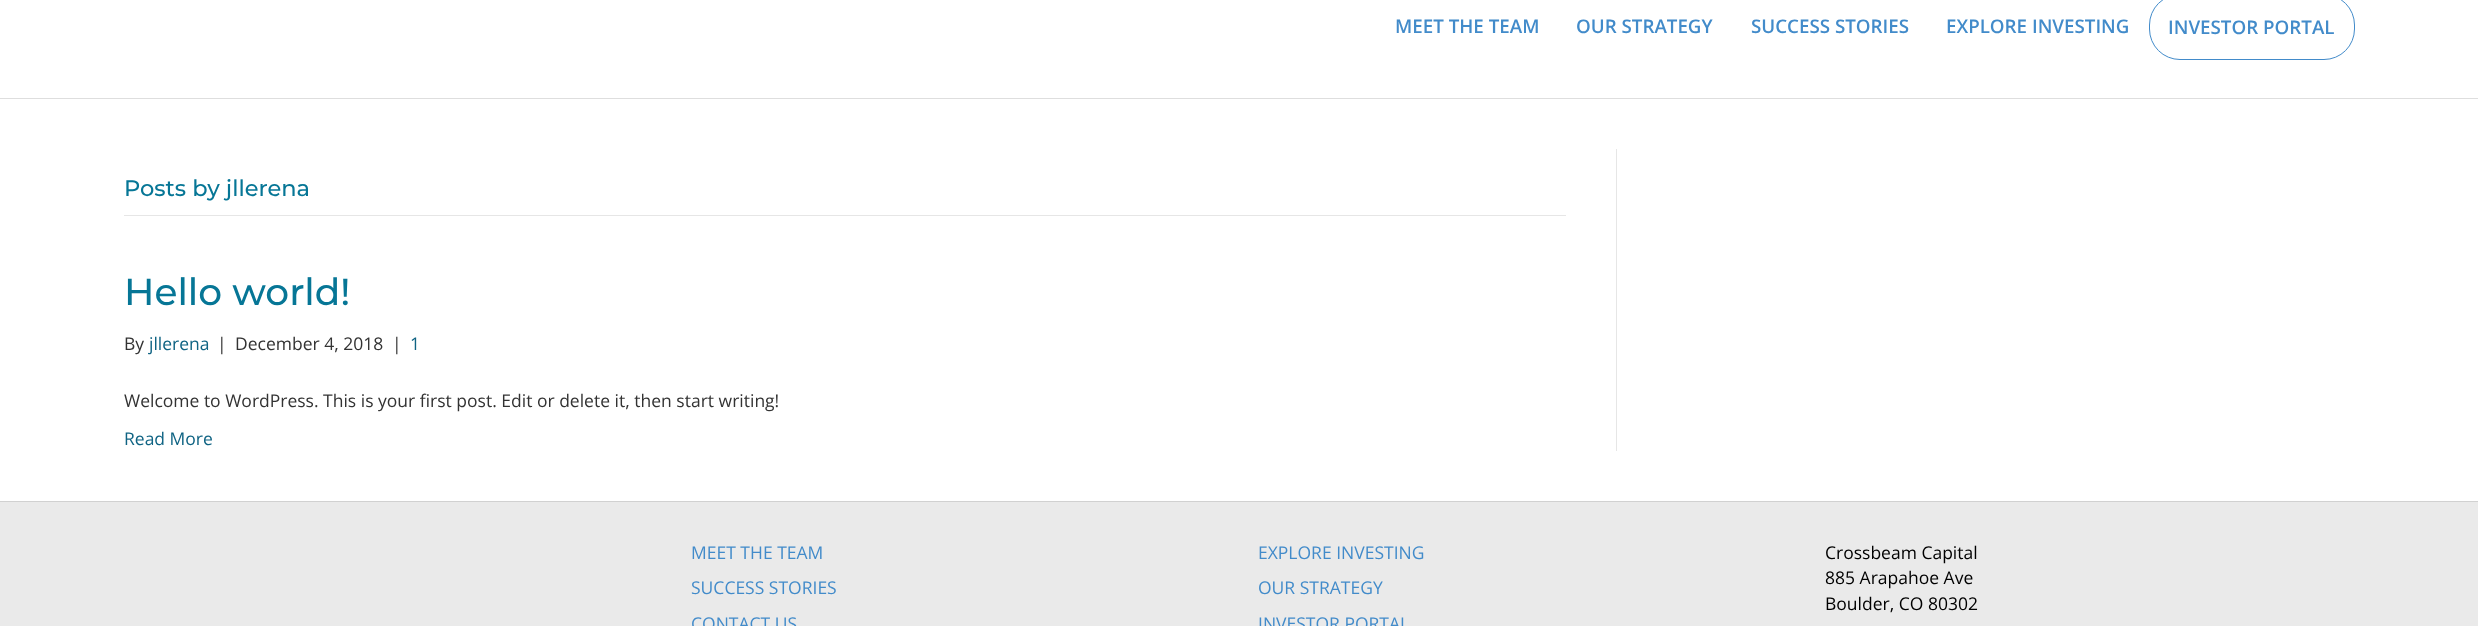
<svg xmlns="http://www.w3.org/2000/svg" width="2478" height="626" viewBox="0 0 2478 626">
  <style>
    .t1 { font: 600 18.75px Open Sans; fill: #428bca; }
    .t2 { font: 100 22.5px Montserrat; fill: #067696; }
    .t3 { font: 100 37.5px Montserrat; fill: #067696; }
    .t4 { font: 17.5px Open Sans; fill: #333; }
    .t5 { font: 17.5px Open Sans; fill: #0f6383; }
    .t6 { font: 17.5px Open Sans; fill: #428bca; }
    .t7 { font: 17.5px Open Sans; fill: #000; }
  </style>
  <rect width="100%" height="100%" fill="#fff"/>
  <rect x="0" y="98" width="2478" height="1" fill="#dedede"/>
  <text x="1395" y="33" class="t1">MEET THE TEAM</text>
  <text x="1576" y="33" class="t1">OUR STRATEGY</text>
  <text x="1751" y="33" class="t1">SUCCESS STORIES</text>
  <text x="1946" y="33" class="t1">EXPLORE INVESTING</text>
  <rect x="2149.5" y="-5.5" width="205" height="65" rx="30.5" fill="none" stroke="#428bca"/>
  <text x="2168" y="34" class="t1">INVESTOR PORTAL</text>
  <rect x="1616" y="149" width="1" height="302" fill="#e6e6e6"/>
  <rect x="124" y="215" width="1442" height="1" fill="#e6e6e6"/>
  <text x="124" y="196" class="t2">Posts by jllerena</text>
  <text x="124" y="305" class="t3">Hello world!</text>
  <text x="124" y="350" class="t4">By</text>
  <text x="149" y="350" class="t5">jllerena</text>
  <text x="217" y="350" class="t4">|</text>
  <text x="235" y="350" class="t4">December 4, 2018</text>
  <text x="392" y="350" class="t4">|</text>
  <text x="410" y="350" class="t5">1</text>
  <text x="124" y="407" class="t4">Welcome to WordPress. This is your first post. Edit or delete it, then start writing!</text>
  <text x="124" y="445" class="t5">Read More</text>
  <rect x="0" y="502" width="2478" height="124" fill="#eaeaea"/>
  <rect x="0" y="501" width="2478" height="1" fill="#d1d1d1"/>
  <text x="691" y="559" class="t6">MEET THE TEAM</text>
  <text x="691" y="594" class="t6">SUCCESS STORIES</text>
  <text x="691" y="630" class="t6">CONTACT US</text>
  <text x="1258" y="559" class="t6">EXPLORE INVESTING</text>
  <text x="1258" y="594" class="t6">OUR STRATEGY</text>
  <text x="1258" y="630" class="t6">INVESTOR PORTAL</text>
  <text x="1825" y="559" class="t7">Crossbeam Capital</text>
  <text x="1825" y="584" class="t7">885 Arapahoe Ave</text>
  <text x="1825" y="610" class="t7">Boulder, CO 80302</text>
</svg>
